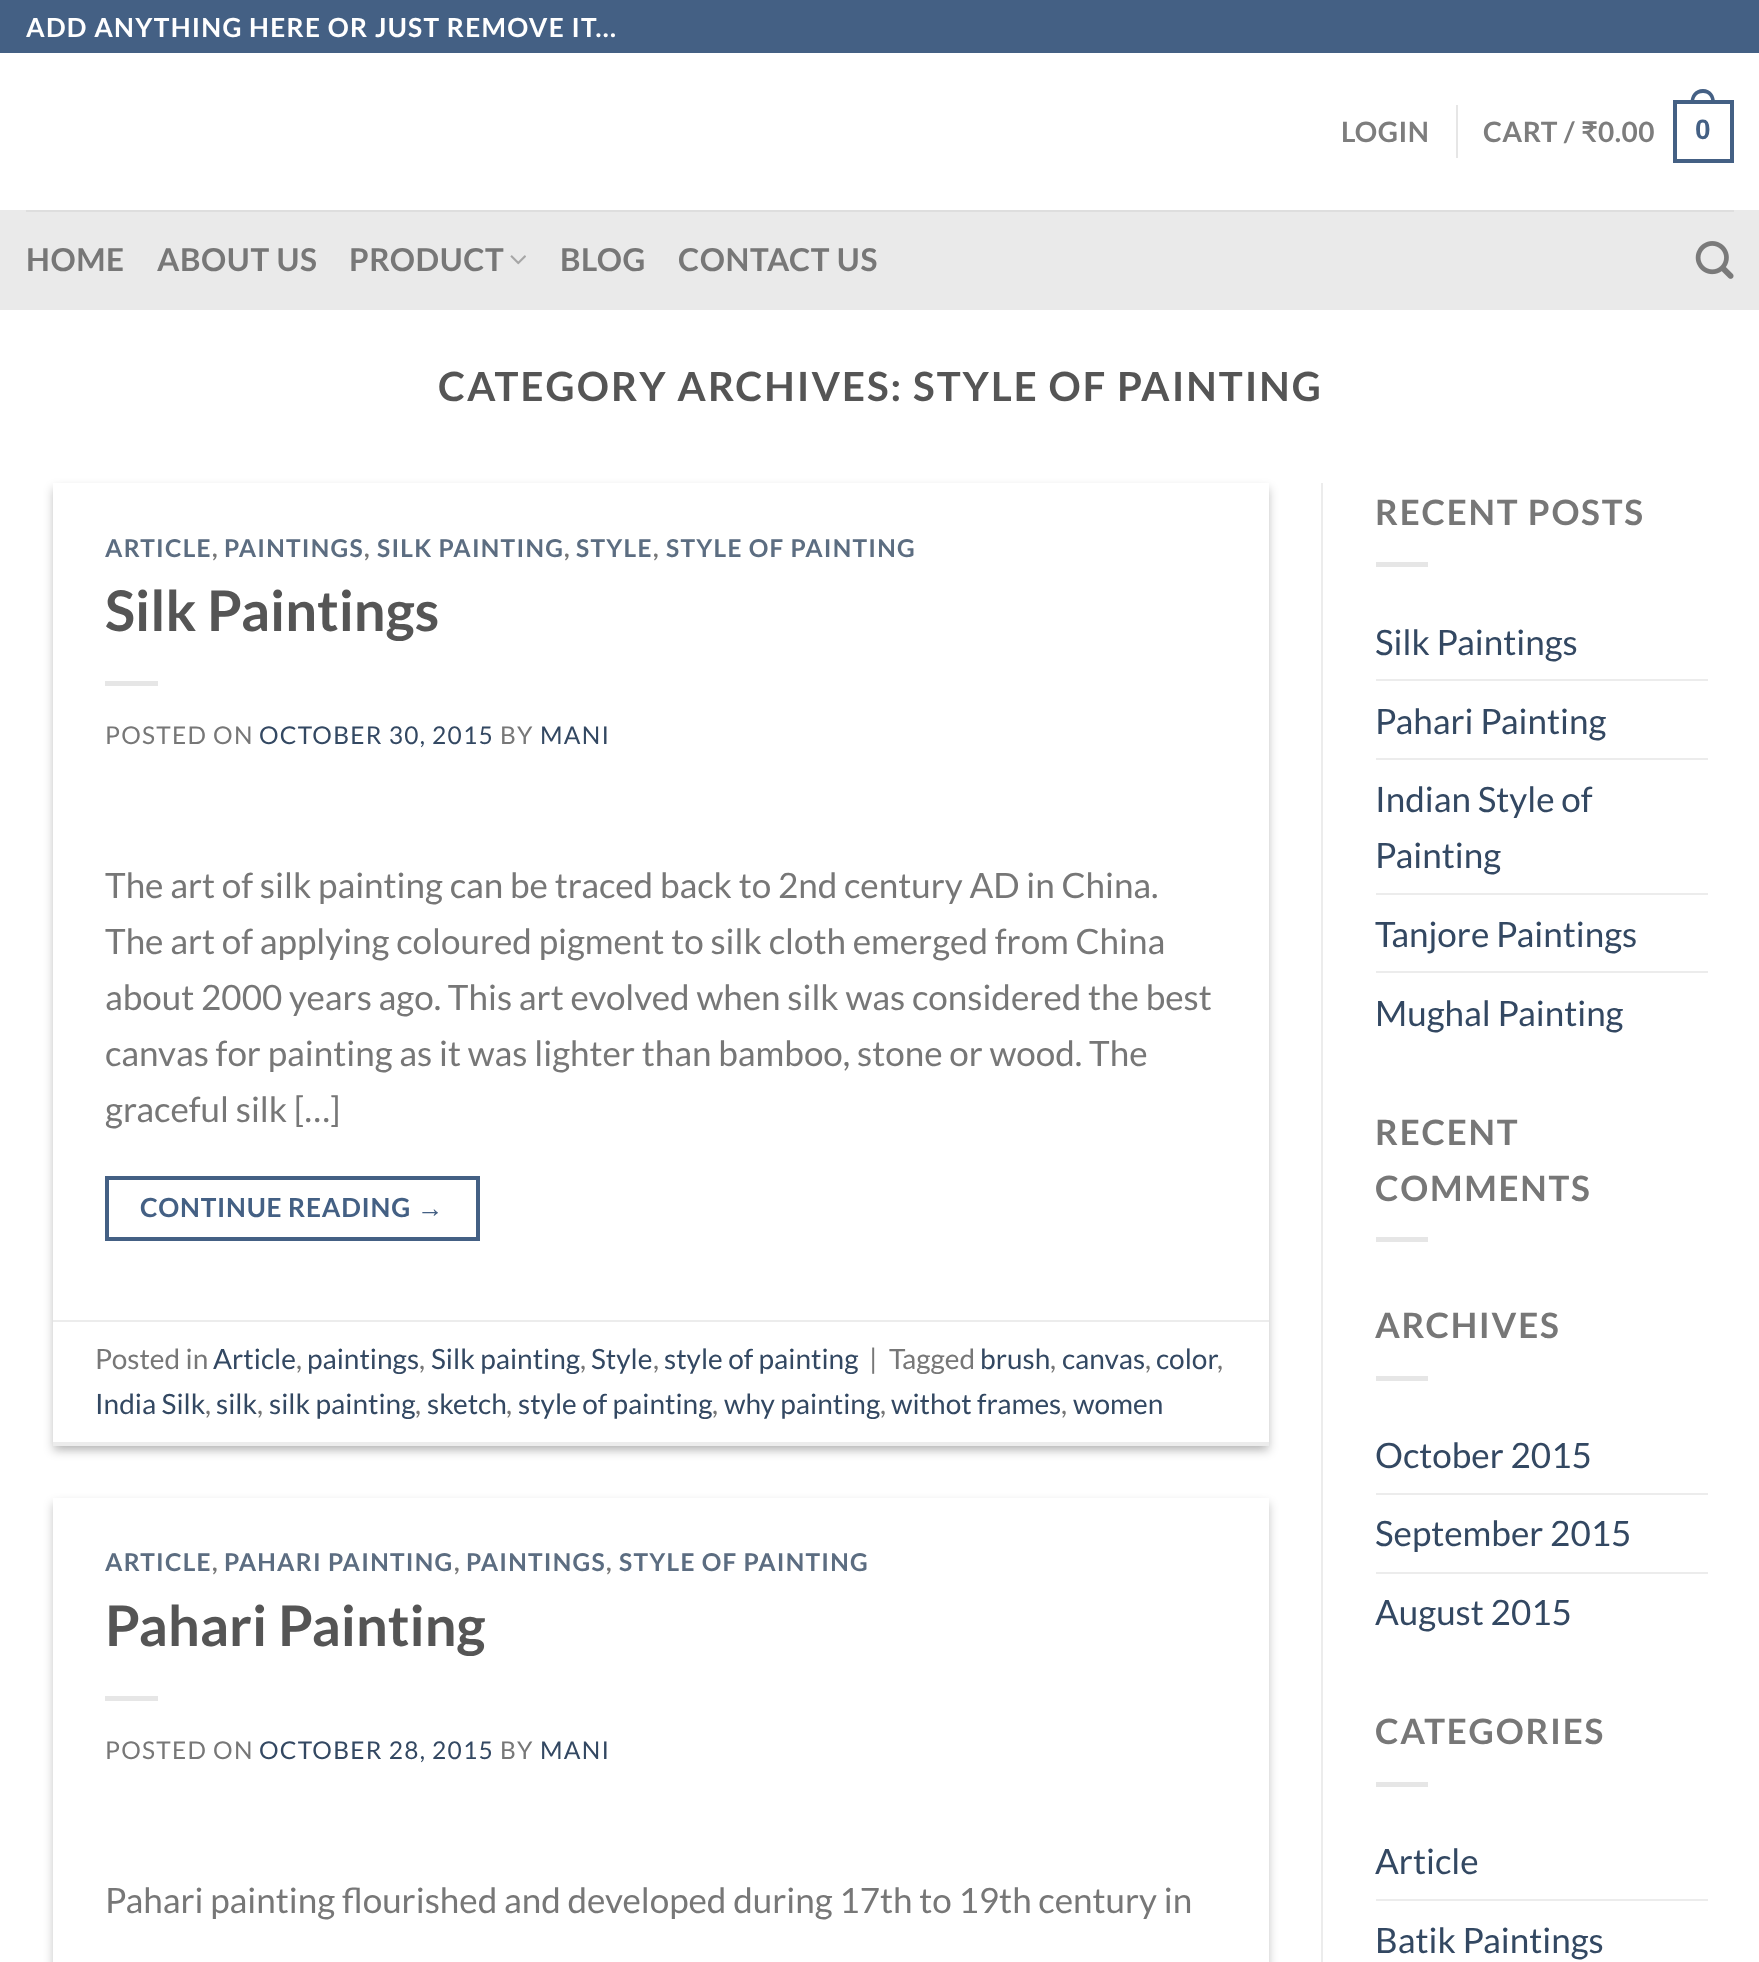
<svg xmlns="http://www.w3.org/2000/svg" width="1759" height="1962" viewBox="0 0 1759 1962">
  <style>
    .t1 { font: bold 26.25px Lato; letter-spacing: 1.3px; fill: #fff; }
    .t2 { font: bold 28px Lato; letter-spacing: 0.5px; fill: #7d7d7d; }
    .t3 { font: bold 28px 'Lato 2'; letter-spacing: 0.5px; fill: #7d7d7d; }
    .t4 { font: bold 28px Liberation Sans; letter-spacing: 0.5px; fill: #446084; }
    .t5 { font: bold 31.5px Lato; letter-spacing: 0.6px; fill: #777; }
    .t6 { font: bold 40.25px Lato; letter-spacing: 2px; fill: #555; }
    .t7 { font: bold 24.5px Lato; letter-spacing: 1.25px; fill: #5c6d81; }
    .t8 { font: bold 24.5px Lato; letter-spacing: 1.25px; fill: #777; }
    .t9 { font: bold 56px Lato; fill: #555; }
    .t10 { font: 24.5px Lato; letter-spacing: 1.25px; fill: #777; }
    .t11 { font: 24.5px Lato; letter-spacing: 1.25px; fill: #334862; }
    .t12 { font: 35px Lato; fill: #777; }
    .t13 { font: bold 26.25px Lato; letter-spacing: 0.75px; fill: #446084; }
    .t14 { font: bold 26.25px Liberation Sans; letter-spacing: 0.75px; fill: #446084; }
    .t15 { font: 28px Lato; fill: #777; }
    .t16 { font: 28px Lato; fill: #334862; }
    .t17 { font: bold 35px Lato; letter-spacing: 1.75px; fill: #777; }
    .t18 { font: 35px Lato; fill: #334862; }
  </style>
  <rect width="100%" height="100%" fill="#fff"/>
  <rect x="0" y="0" width="1759" height="53" fill="#446084"/>
  <text x="26" y="37" class="t1">ADD ANYTHING HERE OR JUST REMOVE IT...</text>
  <text x="1341" y="142" class="t2">LOGIN</text>
  <rect x="1456" y="105" width="2" height="53" fill="#e6e6e6"/>
  <text x="1483" y="142" class="t2">CART /</text>
  <text x="1581" y="142" class="t3">₹</text>
  <text x="1598" y="142" class="t2">0.00</text>
  <rect x="1675" y="102" width="57" height="59" fill="none" stroke="#446084" stroke-width="4"/>
  <path d="M1703 89C1711 89 1715 95.5 1715 103H1690.5C1690.5 95.5 1694.5 89 1703 89ZM1703 93C1709 93 1711.5 97.5 1711.5 103H1694C1694 97.5 1696.5 93 1703 93Z" fill="#446084" fill-rule="evenodd"/>
  <text x="1695" y="139" class="t4">0</text>
  <rect x="0" y="210" width="1759" height="100" fill="#eaeaea"/>
  <rect x="26" y="210" width="1708" height="2" fill="#dedede"/>
  <text x="26" y="271" class="t5">HOME</text>
  <text x="157" y="271" class="t5">ABOUT US</text>
  <text x="349" y="271" class="t5">PRODUCT</text>
  <image x="510" y="255" width="16" height="10" href="images/1.png"/>
  <text x="560" y="271" class="t5">BLOG</text>
  <text x="678" y="271" class="t5">CONTACT US</text>
  <image x="1695" y="241" width="39" height="38" href="images/2.png"/>
  <text x="438" y="401" class="t6">CATEGORY ARCHIVES: STYLE OF PAINTING</text>
  <rect x="53" y="488" width="1216" height="963" fill="#0000003b" filter="blur(5px)"/>
  <rect x="60" y="495" width="1202" height="949" fill="#00000029" filter="blur(5px)"/>
  <rect x="53" y="483" width="1216" height="959" fill="#fff"/>
  <text x="105" y="557" class="t7">ARTICLE</text>
  <text x="212" y="557" class="t8">,</text>
  <text x="224" y="557" class="t7">PAINTINGS</text>
  <text x="364" y="557" class="t8">,</text>
  <text x="377" y="557" class="t7">SILK PAINTING</text>
  <text x="564" y="557" class="t8">,</text>
  <text x="576" y="557" class="t7">STYLE</text>
  <text x="653" y="557" class="t8">,</text>
  <text x="666" y="557" class="t7">STYLE OF PAINTING</text>
  <text x="105" y="631" class="t9">Silk Paintings</text>
  <rect x="105" y="681" width="53" height="5" fill="#e6e6e6"/>
  <text x="105" y="744" class="t10">POSTED ON</text>
  <text x="259" y="744" class="t11">OCTOBER 30, 2015</text>
  <text x="500" y="744" class="t10">BY</text>
  <text x="540" y="744" class="t11">MANI</text>
  <text x="105" y="898" class="t12">The art of silk painting can be traced back to 2nd century AD in China.</text>
  <text x="105" y="954" class="t12">The art of applying coloured pigment to silk cloth emerged from China</text>
  <text x="105" y="1010" class="t12">about 2000 years ago. This art evolved when silk was considered the best</text>
  <text x="105" y="1066" class="t12">canvas for painting as it was lighter than bamboo, stone or wood. The</text>
  <text x="105" y="1122" class="t12">graceful silk […]</text>
  <rect x="107" y="1178" width="371" height="61" fill="none" stroke="#446084" stroke-width="4"/>
  <text x="140" y="1217" class="t13">CONTINUE READING</text>
  <text x="417" y="1217" class="t14">→</text>
  <rect x="53" y="1320" width="1216" height="2" fill="#ececec"/>
  <rect x="53" y="1442" width="1216" height="4" fill="#ececec"/>
  <text x="95" y="1369" class="t15">Posted in</text>
  <text x="213" y="1369" class="t16">Article</text>
  <text x="296" y="1369" class="t15">,</text>
  <text x="307" y="1369" class="t16">paintings</text>
  <text x="419" y="1369" class="t15">,</text>
  <text x="431" y="1369" class="t16">Silk painting</text>
  <text x="580" y="1369" class="t15">,</text>
  <text x="591" y="1369" class="t16">Style</text>
  <text x="653" y="1369" class="t15">,</text>
  <text x="664" y="1369" class="t16">style of painting</text>
  <text x="869" y="1369" class="t15">|</text>
  <text x="889" y="1369" class="t15">Tagged</text>
  <text x="980" y="1369" class="t16">brush</text>
  <text x="1050" y="1369" class="t15">,</text>
  <text x="1062" y="1369" class="t16">canvas</text>
  <text x="1145" y="1369" class="t15">,</text>
  <text x="1156" y="1369" class="t16">color</text>
  <text x="1217" y="1369" class="t15">,</text>
  <text x="95" y="1414" class="t16">India Silk</text>
  <text x="205" y="1414" class="t15">,</text>
  <text x="216" y="1414" class="t16">silk</text>
  <text x="257" y="1414" class="t15">,</text>
  <text x="269" y="1414" class="t16">silk painting</text>
  <text x="415" y="1414" class="t15">,</text>
  <text x="427" y="1414" class="t16">sketch</text>
  <text x="506" y="1414" class="t15">,</text>
  <text x="518" y="1414" class="t16">style of painting</text>
  <text x="712" y="1414" class="t15">,</text>
  <text x="724" y="1414" class="t16">why painting</text>
  <text x="880" y="1414" class="t15">,</text>
  <text x="891" y="1414" class="t16">withot frames</text>
  <text x="1061" y="1414" class="t15">,</text>
  <text x="1073" y="1414" class="t16">women</text>
  <rect x="53" y="1503" width="1216" height="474" fill="#0000003b" filter="blur(5px)"/>
  <rect x="53" y="1498" width="1216" height="464" fill="#fff"/>
  <text x="105" y="1571" class="t7">ARTICLE</text>
  <text x="212" y="1571" class="t8">,</text>
  <text x="224" y="1571" class="t7">PAHARI PAINTING</text>
  <text x="454" y="1571" class="t8">,</text>
  <text x="466" y="1571" class="t7">PAINTINGS</text>
  <text x="606" y="1571" class="t8">,</text>
  <text x="619" y="1571" class="t7">STYLE OF PAINTING</text>
  <text x="105" y="1646" class="t9">Pahari Painting</text>
  <rect x="105" y="1696" width="53" height="5" fill="#e6e6e6"/>
  <text x="105" y="1759" class="t10">POSTED ON</text>
  <text x="259" y="1759" class="t11">OCTOBER 28, 2015</text>
  <text x="500" y="1759" class="t10">BY</text>
  <text x="540" y="1759" class="t11">MANI</text>
  <text x="105" y="1913" class="t12">Pahari painting flourished and developed during 17th to 19th century in</text>
  <rect x="1321" y="483" width="2" height="1479" fill="#ececec"/>
  <text x="1375" y="525" class="t17">RECENT POSTS</text>
  <rect x="1376" y="562" width="52" height="5" fill="#e6e6e6"/>
  <text x="1375" y="655" class="t18">Silk Paintings</text>
  <rect x="1376" y="679" width="332" height="2" fill="#ececec"/>
  <text x="1375" y="734" class="t18">Pahari Painting</text>
  <rect x="1376" y="758" width="332" height="2" fill="#ececec"/>
  <text x="1375" y="812" class="t18">Indian Style of</text>
  <text x="1375" y="868" class="t18">Painting</text>
  <rect x="1376" y="893" width="332" height="2" fill="#ececec"/>
  <text x="1375" y="947" class="t18">Tanjore Paintings</text>
  <rect x="1376" y="971" width="332" height="2" fill="#ececec"/>
  <text x="1375" y="1026" class="t18">Mughal Painting</text>
  <text x="1375" y="1145" class="t17">RECENT</text>
  <text x="1375" y="1201" class="t17">COMMENTS</text>
  <rect x="1376" y="1237" width="52" height="5" fill="#e6e6e6"/>
  <text x="1375" y="1338" class="t17">ARCHIVES</text>
  <rect x="1376" y="1376" width="52" height="5" fill="#e6e6e6"/>
  <text x="1375" y="1468" class="t18">October 2015</text>
  <rect x="1376" y="1493" width="332" height="2" fill="#ececec"/>
  <text x="1375" y="1546" class="t18">September 2015</text>
  <rect x="1376" y="1572" width="332" height="2" fill="#ececec"/>
  <text x="1375" y="1625" class="t18">August 2015</text>
  <text x="1375" y="1744" class="t17">CATEGORIES</text>
  <rect x="1376" y="1782" width="52" height="5" fill="#e6e6e6"/>
  <text x="1375" y="1874" class="t18">Article</text>
  <rect x="1376" y="1899" width="332" height="2" fill="#ececec"/>
  <text x="1375" y="1953" class="t18">Batik Paintings</text>
</svg>
